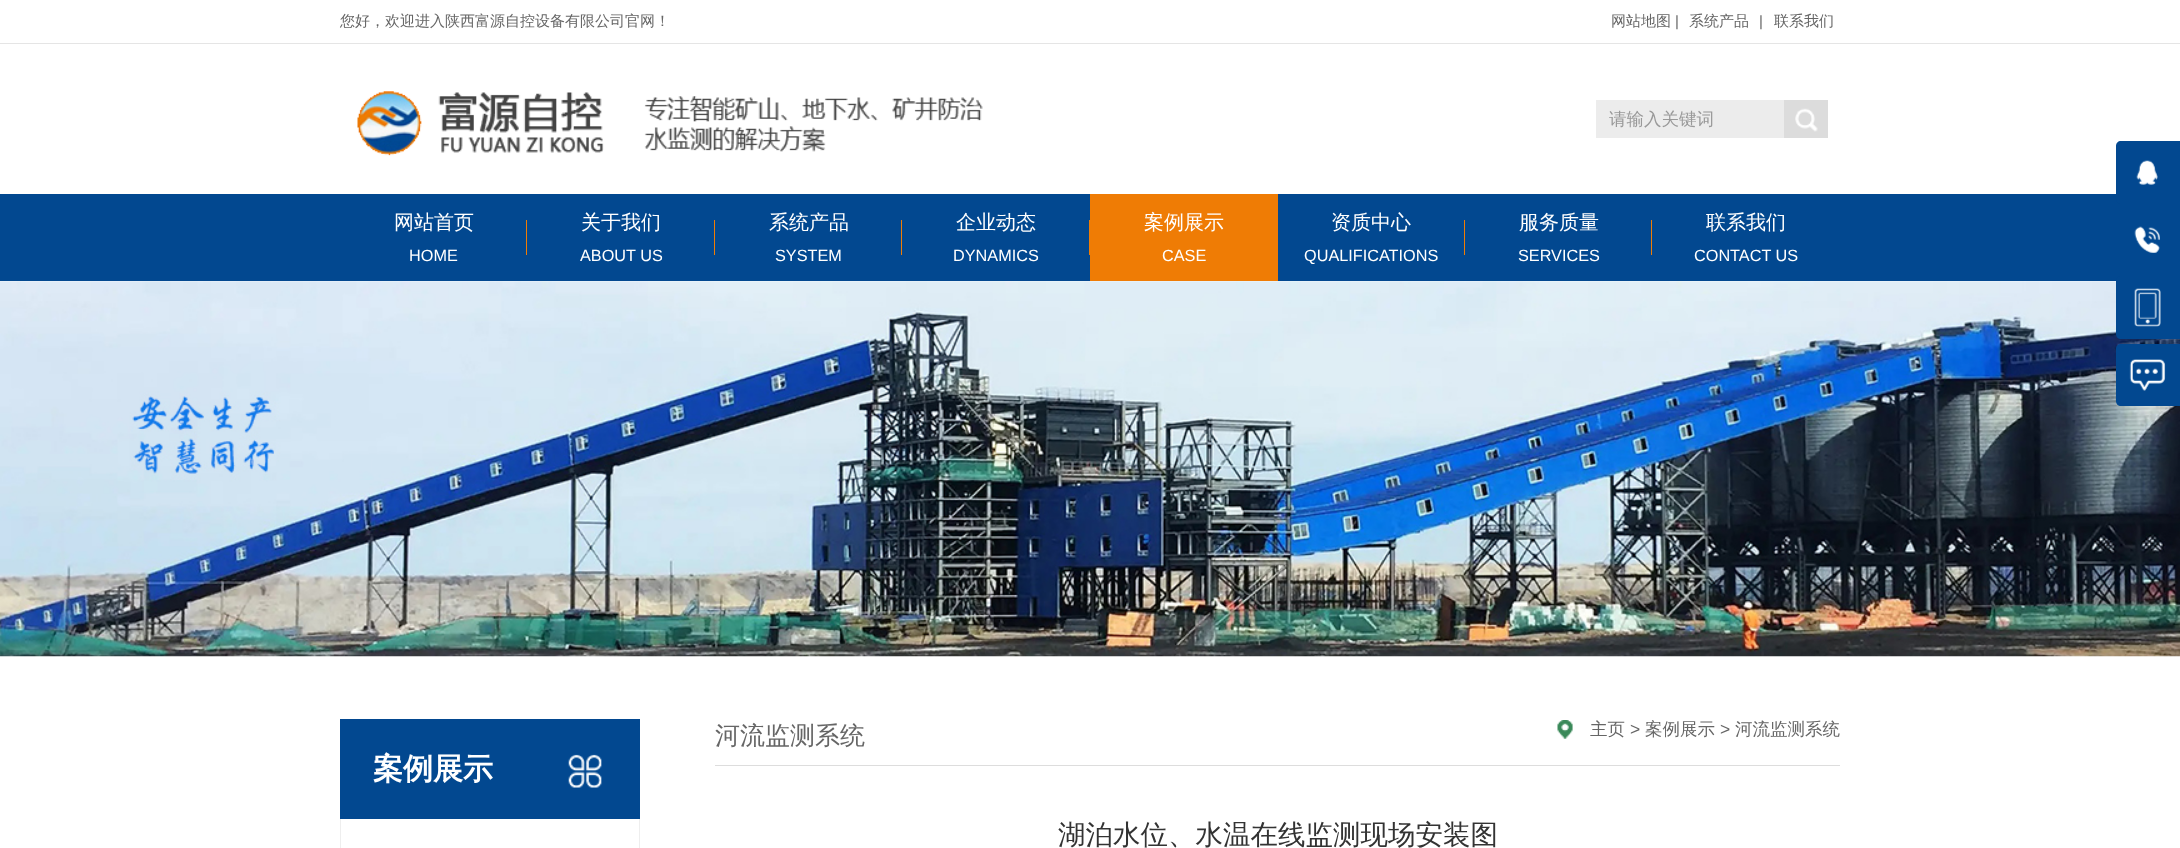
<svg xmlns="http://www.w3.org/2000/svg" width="2180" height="848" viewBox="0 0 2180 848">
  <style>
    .t1 { font: 500 15px WenQuanYi Zen Hei; fill: #666; }
    .t2 { font: 15px Liberation Sans; fill: #666; }
    .t3 { font: 500 17.5px WenQuanYi Zen Hei; fill: #999; }
    .t4 { font: 500 20px WenQuanYi Zen Hei; fill: #fff; }
    .t5 { font: 16.25px Liberation Sans; fill: #fff; }
    .t6 { font: bold 30px WenQuanYi Zen Hei; fill: #fff; }
    .t7 { font: 500 25px WenQuanYi Zen Hei; fill: #666; }
    .t8 { font: 500 17.5px WenQuanYi Zen Hei; fill: #666; }
    .t9 { font: 17.5px Liberation Sans; fill: #666; }
    .t10 { font: 500 27.5px WenQuanYi Zen Hei; fill: #333; }
  </style>
  <rect width="100%" height="100%" fill="#fff"/>
  <rect x="0" y="43" width="2180" height="1" fill="#e5e5e5"/>
  <text x="340" y="26" class="t1">您好，欢迎进入陕西富源自控设备有限公司官网！</text>
  <text x="1611" y="26" class="t1">网站地图</text>
  <text x="1675" y="26" class="t2">|</text>
  <text x="1689" y="26" class="t1">系统产品</text>
  <text x="1759" y="26" class="t2">|</text>
  <text x="1774" y="26" class="t1">联系我们</text>
  <image x="357" y="91" width="626" height="65" href="images/1.png"/>
  <rect x="1596" y="100" width="188" height="38" fill="#ececec"/>
  <text x="1609" y="125" class="t3">请输入关键词</text>
  <rect x="1784" y="100" width="44" height="38" fill="#dcdcdc"/>
  <image x="1795" y="108" width="23" height="24" href="images/2.png"/>
  <rect x="0" y="194" width="2180" height="87" fill="#024890"/>
  <text x="394" y="229" class="t4">网站首页</text>
  <rect x="526" y="220" width="1" height="35" fill="#ef7c05"/>
  <text x="409" y="261" class="t5">HOME</text>
  <text x="581" y="229" class="t4">关于我们</text>
  <rect x="714" y="220" width="1" height="35" fill="#ef7c05"/>
  <text x="580" y="261" class="t5">ABOUT US</text>
  <text x="769" y="229" class="t4">系统产品</text>
  <rect x="901" y="220" width="1" height="35" fill="#ef7c05"/>
  <text x="775" y="261" class="t5">SYSTEM</text>
  <text x="956" y="229" class="t4">企业动态</text>
  <rect x="1089" y="220" width="1" height="35" fill="#ef7c05"/>
  <text x="953" y="261" class="t5">DYNAMICS</text>
  <rect x="1090" y="194" width="188" height="87" fill="#ef7c05"/>
  <text x="1144" y="229" class="t4">案例展示</text>
  <text x="1162" y="261" class="t5">CASE</text>
  <text x="1331" y="229" class="t4">资质中心</text>
  <rect x="1464" y="220" width="1" height="35" fill="#ef7c05"/>
  <text x="1304" y="261" class="t5">QUALIFICATIONS</text>
  <text x="1519" y="229" class="t4">服务质量</text>
  <rect x="1651" y="220" width="1" height="35" fill="#ef7c05"/>
  <text x="1518" y="261" class="t5">SERVICES</text>
  <text x="1706" y="229" class="t4">联系我们</text>
  <text x="1694" y="261" class="t5">CONTACT US</text>
  <path d="M2121 141H2180V204H2121C2118 204 2116 202 2116 199V146C2116 143 2118 141 2121 141Z" fill="#024890"/>
  <image x="2136" y="160" width="22" height="25" href="images/3.png"/>
  <image x="2134" y="226" width="26" height="27" href="images/4.png"/>
  <image x="0" y="281" width="2180" height="376" href="images/7.png"/>
  <path d="M2121 276H2180V339H2121C2118 339 2116 337 2116 334V281C2116 278 2118 276 2121 276Z" fill="#024890"/>
  <image x="2134" y="288" width="27" height="39" href="images/5.png"/>
  <path d="M2121 344H2180V406H2121C2118 406 2116 404 2116 401V349C2116 346 2118 344 2121 344Z" fill="#024890"/>
  <image x="2129" y="359" width="37" height="32" href="images/6.png"/>
  <rect x="340" y="719" width="300" height="100" fill="#024890"/>
  <text x="373" y="779" class="t6">案例展示</text>
  <image x="568" y="754" width="34" height="34" href="images/8.png"/>
  <rect x="639" y="819" width="1" height="29" fill="#eee"/>
  <rect x="340" y="819" width="1" height="29" fill="#eee"/>
  <rect x="715" y="765" width="1125" height="1" fill="#ddd"/>
  <text x="715" y="744" class="t7">河流监测系统</text>
  <image x="1557" y="720" width="16" height="19" href="images/9.png"/>
  <text x="1590" y="735" class="t8">主页</text>
  <text x="1630" y="735" class="t9">&gt;</text>
  <text x="1645" y="735" class="t8">案例展示</text>
  <text x="1720" y="735" class="t9">&gt;</text>
  <text x="1735" y="735" class="t8">河流监测系统</text>
  <text x="1058" y="844" class="t10">湖泊水位、水温在线监测现场安装图</text>
</svg>
